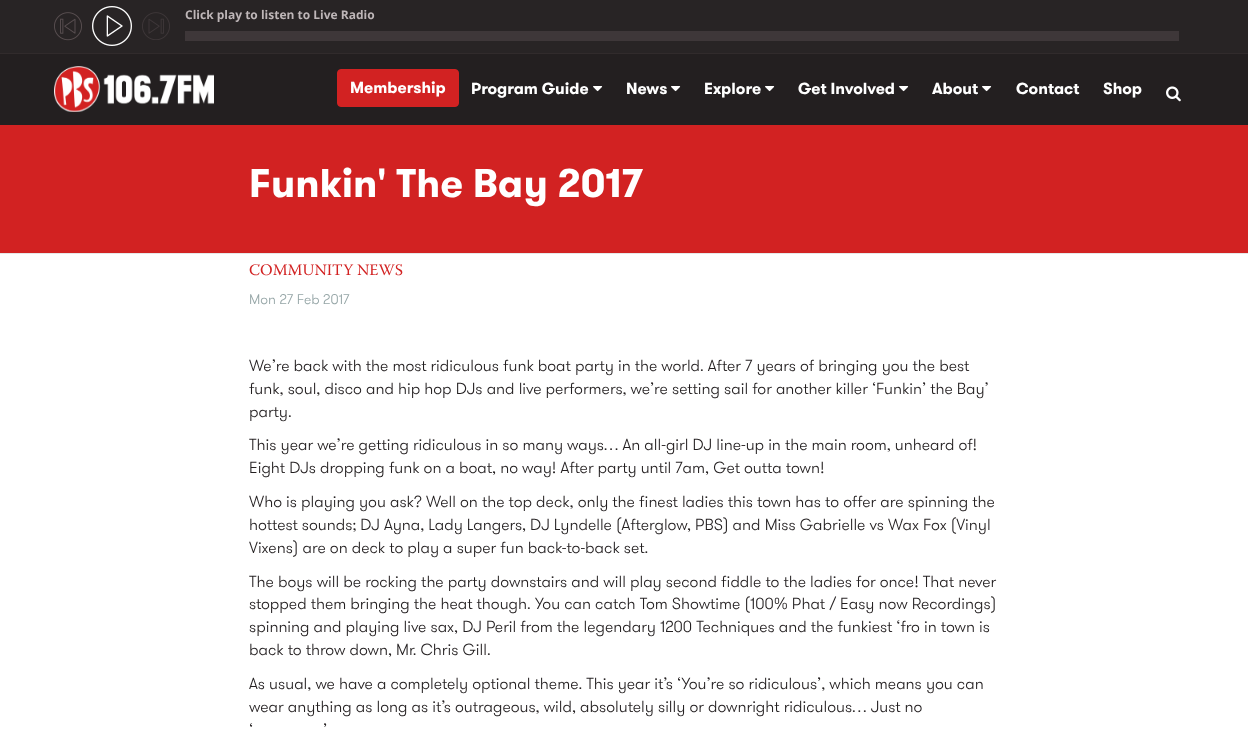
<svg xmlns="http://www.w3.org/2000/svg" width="1248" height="730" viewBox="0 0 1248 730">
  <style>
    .t1 { font: bold 12px Open Sans; fill: #beb6b8; }
    .t2 { font: bold 16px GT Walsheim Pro; fill: #fff; }
    .t3 { font: bold 40px GT Walsheim Pro; fill: #fff; }
    .t4 { font: 16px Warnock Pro; fill: #d22222; }
    .t5 { font: 300 14px GT Walsheim Pro; fill: #95a5a6; }
    .t6 { font: 300 16px GT Walsheim Pro; fill: #231f20; }
  </style>
  <rect width="100%" height="100%" fill="#fff"/>
  <rect x="0" y="0" width="1248" height="53" fill="#282425"/>
  <rect x="0" y="53" width="1248" height="1" fill="#312b2c"/>
  <image x="54" y="12" width="28" height="29" href="images/1.png"/>
  <image x="92" y="6" width="40" height="40" href="images/2.png"/>
  <image x="142" y="12" width="28" height="28" href="images/3.png"/>
  <text x="185" y="19" class="t1">Click play to listen to Live Radio</text>
  <rect x="185" y="31" width="994" height="10" fill="#3e3739"/>
  <rect x="0" y="54" width="1248" height="71" fill="#231f20"/>
  <image x="54" y="66" width="160" height="46" href="images/4.png"/>
  <rect x="337.5" y="69.5" width="121" height="37" rx="3.5" fill="#d22222" stroke="#d22222"/>
  <text x="350" y="93" class="t2">Membership</text>
  <text x="471" y="94" class="t2">Program Guide</text>
  <image x="593" y="86" width="10" height="6" href="images/5.png"/>
  <text x="626" y="94" class="t2">News</text>
  <image x="671" y="86" width="10" height="6" href="images/5.png"/>
  <text x="704" y="94" class="t2">Explore</text>
  <image x="765" y="86" width="10" height="6" href="images/5.png"/>
  <text x="798" y="94" class="t2">Get Involved</text>
  <image x="899" y="86" width="10" height="6" href="images/5.png"/>
  <text x="932" y="94" class="t2">About</text>
  <image x="982" y="86" width="10" height="6" href="images/5.png"/>
  <text x="1016" y="94" class="t2">Contact</text>
  <text x="1103" y="94" class="t2">Shop</text>
  <image x="1166" y="86" width="15" height="16" href="images/6.png"/>
  <rect x="0" y="125" width="1248" height="128" fill="#d22222"/>
  <rect x="0" y="253" width="1248" height="1" fill="#e6e7e7"/>
  <text x="249" y="197" class="t3">Funkin' The Bay 2017</text>
  <text x="249" y="275" class="t4">COMMUNITY NEWS</text>
  <text x="249" y="304" class="t5">Mon 27 Feb 2017</text>
  <text x="249" y="371" class="t6">We’re back with the most ridiculous funk boat party in the world. After 7 years of bringing you the best</text>
  <text x="249" y="394" class="t6">funk, soul, disco and hip hop DJs and live performers, we’re setting sail for another killer ‘Funkin’ the Bay’</text>
  <text x="249" y="417" class="t6">party.</text>
  <text x="249" y="450" class="t6">This year we’re getting ridiculous in so many ways… An all-girl DJ line-up in the main room, unheard of!</text>
  <text x="249" y="473" class="t6">Eight DJs dropping funk on a boat, no way! After party until 7am, Get outta town!</text>
  <text x="249" y="507" class="t6">Who is playing you ask? Well on the top deck, only the finest ladies this town has to offer are spinning the</text>
  <text x="249" y="530" class="t6">hottest sounds; DJ Ayna, Lady Langers, DJ Lyndelle (Afterglow, PBS) and Miss Gabrielle vs Wax Fox (Vinyl</text>
  <text x="249" y="553" class="t6">Vixens) are on deck to play a super fun back-to-back set.</text>
  <text x="249" y="587" class="t6">The boys will be rocking the party downstairs and will play second fiddle to the ladies for once! That never</text>
  <text x="249" y="609" class="t6">stopped them bringing the heat though. You can catch Tom Showtime (100% Phat / Easy now Recordings)</text>
  <text x="249" y="632" class="t6">spinning and playing live sax, DJ Peril from the legendary 1200 Techniques and the funkiest ‘fro in town is</text>
  <text x="249" y="655" class="t6">back to throw down, Mr. Chris Gill.</text>
  <text x="249" y="689" class="t6">As usual, we have a completely optional theme. This year it’s ‘You’re so ridiculous’, which means you can</text>
  <text x="249" y="712" class="t6">wear anything as long as it’s outrageous, wild, absolutely silly or downright ridiculous… Just no</text>
  <text x="249" y="735" class="t6">‘</text>
  <text x="323" y="735" class="t6">’</text>
</svg>
